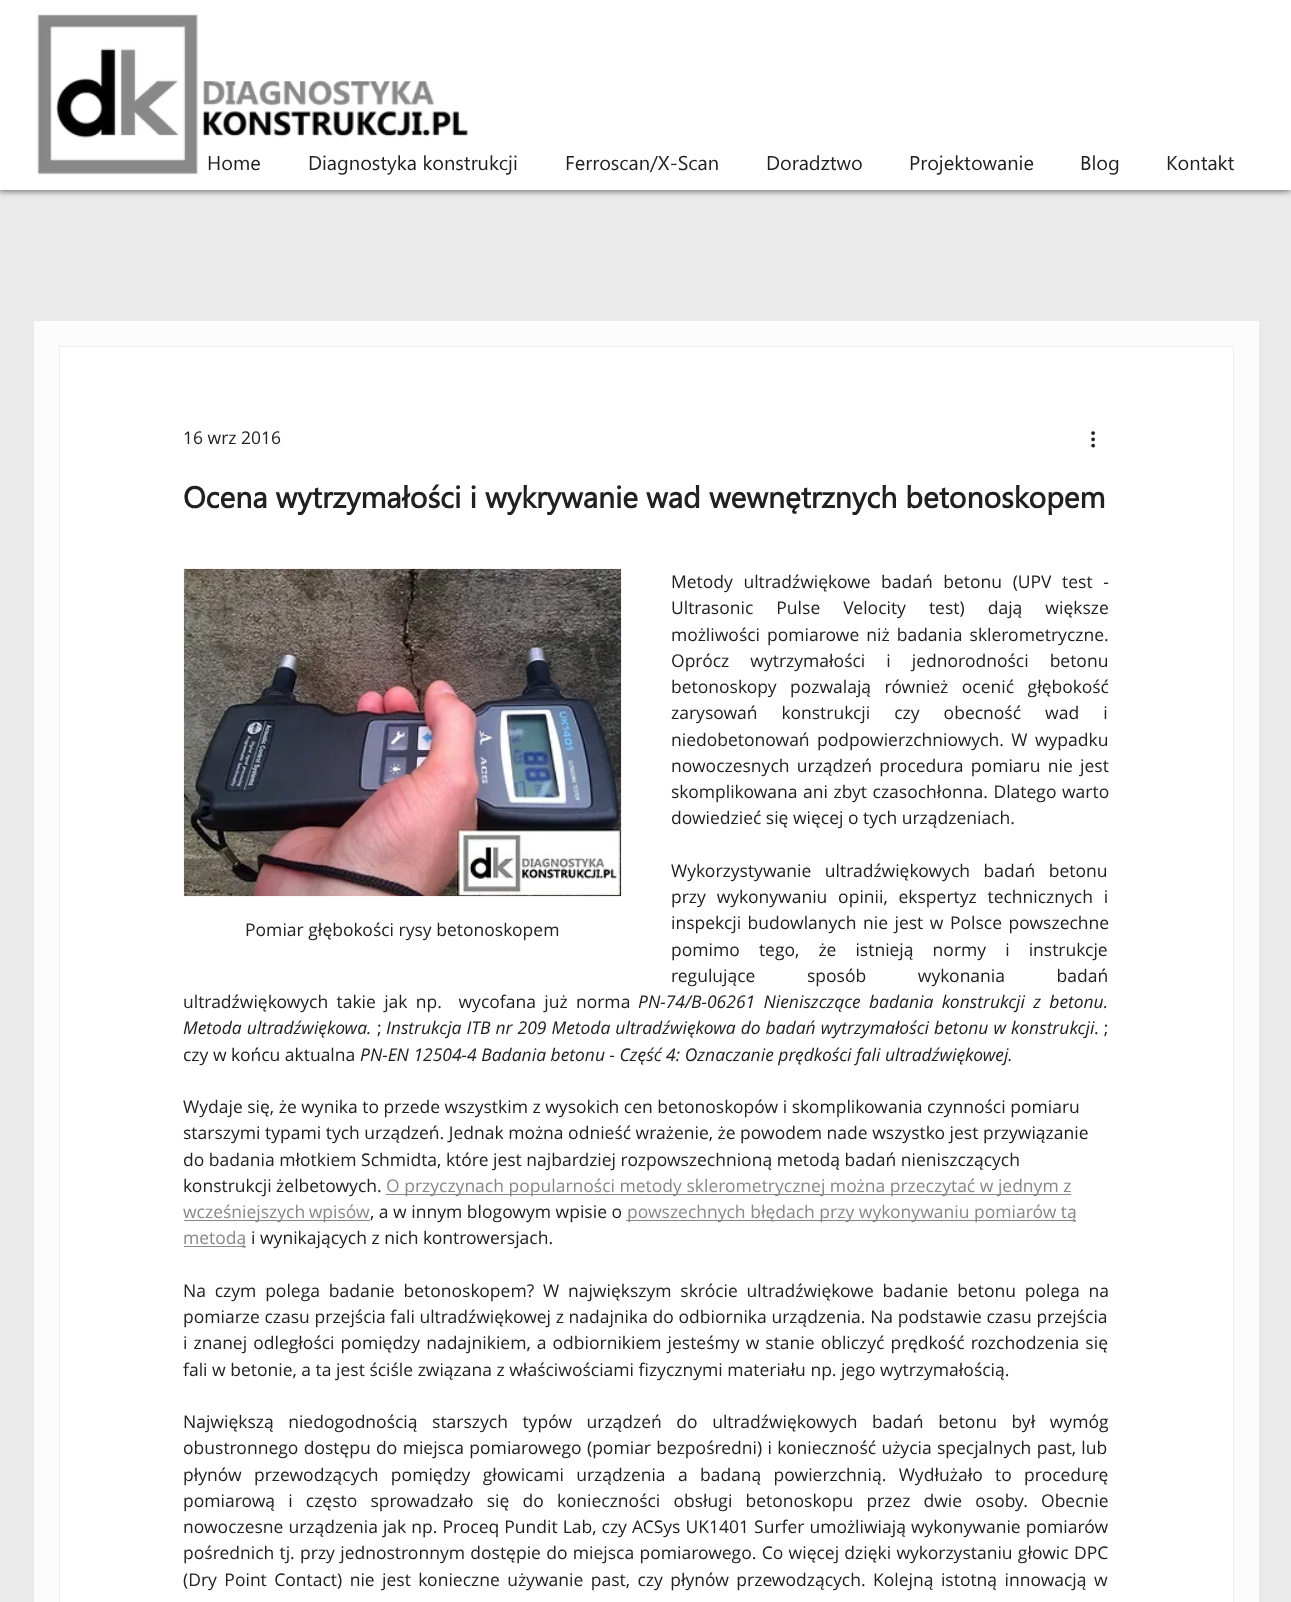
<svg xmlns="http://www.w3.org/2000/svg" width="1291" height="1602" viewBox="0 0 1291 1602">
  <style>
    .t1 { font: 20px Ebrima; fill: #212121; }
    .t2 { font: 17.5px Open Sans; fill: #212121; }
    .t3 { font: bold 30px Ebrima; fill: #212121; }
    .t4 { font: italic 17.5px Open Sans; fill: #212121; }
    .t5 { font: 17.5px Open Sans; fill: #888; }
  </style>
  <rect width="100%" height="100%" fill="#eaeaea"/>
  <rect x="-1" y="1" width="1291" height="190" fill="#00000099" filter="blur(3px)"/>
  <rect x="0" y="0" width="1291" height="190" fill="#fff"/>
  <image x="37" y="14" width="431" height="161" href="images/1.png"/>
  <text x="207" y="170" class="t1">Home</text>
  <text x="308" y="170" class="t1">Diagnostyka konstrukcji</text>
  <text x="565" y="170" class="t1">Ferroscan/X-Scan</text>
  <text x="766" y="170" class="t1">Doradztwo</text>
  <text x="909" y="170" class="t1">Projektowanie</text>
  <text x="1080" y="170" class="t1">Blog</text>
  <text x="1166" y="170" class="t1">Kontakt</text>
  <rect x="34" y="321" width="1225" height="1281" fill="#fcfcfc"/>
  <rect x="59.5" y="346.5" width="1174" height="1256" fill="#fff" stroke="#ededed"/>
  <text x="183" y="444" class="t2">16 wrz 2016</text>
  <image x="1091" y="431" width="4" height="17" href="images/2.png"/>
  <text x="183" y="508" class="t3">Ocena wytrzymałości i wykrywanie wad wewnętrznych betonoskopem</text>
  <text x="671" y="588" word-spacing="6" class="t2">Metody ultradźwiękowe badań betonu (UPV test -</text>
  <text x="671" y="614" word-spacing="18.5" class="t2">Ultrasonic Pulse Velocity test) dają większe</text>
  <text x="671" y="641" word-spacing="2.5" class="t2">możliwości pomiarowe niż badania sklerometryczne.</text>
  <text x="671" y="667" word-spacing="16.5" class="t2">Oprócz wytrzymałości i jednorodności betonu</text>
  <text x="671" y="693" word-spacing="9" class="t2">betonoskopy pozwalają również ocenić głębokość</text>
  <text x="671" y="719" word-spacing="19.5" class="t2">zarysowań konstrukcji czy obecność wad i</text>
  <text x="671" y="746" word-spacing="2.9" class="t2">niedobetonowań podpowierzchniowych. W wypadku</text>
  <text x="671" y="772" word-spacing="2.75" class="t2">nowoczesnych urządzeń procedura pomiaru nie jest</text>
  <text x="671" y="798" word-spacing="1" class="t2">skomplikowana ani zbyt czasochłonna. Dlatego warto</text>
  <text x="671" y="824" class="t2">dowiedzieć się więcej o tych urządzeniach.</text>
  <text x="671" y="877" word-spacing="9" class="t2">Wykorzystywanie ultradźwiękowych badań betonu</text>
  <text x="671" y="903" word-spacing="6.25" class="t2">przy wykonywaniu opinii, ekspertyz technicznych i</text>
  <text x="671" y="929" word-spacing="2" class="t2">inspekcji budowlanych nie jest w Polsce powszechne</text>
  <text x="671" y="956" word-spacing="14.5" class="t2">pomimo tego, że istnieją normy i instrukcje</text>
  <text x="671" y="982" word-spacing="47" class="t2">regulujące sposób wykonania badań</text>
  <text x="183" y="1008" word-spacing="3.75" class="t2" xml:space="preserve">ultradźwiękowych takie jak np.  wycofana już norma</text>
  <text x="638" y="1008" word-spacing="3.75" class="t4">PN-74/B-06261 Nieniszczące badania konstrukcji z betonu.</text>
  <text x="183" y="1034" word-spacing="0.5" class="t4">Metoda ultradźwiękowa.</text>
  <text x="377" y="1034" class="t2">;</text>
  <text x="386" y="1034" word-spacing="0.5" class="t4">Instrukcja ITB nr 209 Metoda ultradźwiękowa do badań wytrzymałości betonu w konstrukcji</text>
  <text x="1094" y="1034" word-spacing="0.5" class="t2">. ;</text>
  <text x="183" y="1061" class="t2">czy w końcu aktualna</text>
  <text x="360" y="1061" class="t4">PN-EN 12504-4 Badania betonu - Część 4: Oznaczanie prędkości fali ultradźwiękowej.</text>
  <image x="183" y="568" width="439" height="329" href="images/3.png"/>
  <text x="245" y="936" class="t2">Pomiar głębokości rysy betonoskopem</text>
  <text x="183" y="1113" class="t2">Wydaje się, że wynika to przede wszystkim z wysokich cen betonoskopów i skomplikowania czynności pomiaru</text>
  <text x="183" y="1139" class="t2">starszymi typami tych urządzeń. Jednak można odnieść wrażenie, że powodem nade wszystko jest przywiązanie</text>
  <text x="183" y="1166" class="t2">do badania młotkiem Schmidta, które jest najbardziej rozpowszechnioną metodą badań nieniszczących</text>
  <text x="183" y="1192" class="t2">konstrukcji żelbetowych.</text>
  <rect x="386" y="1194" width="685" height="1" fill="#888"/>
  <text x="386" y="1192" class="t5">O przyczynach popularności metody sklerometrycznej można przeczytać w jednym z</text>
  <rect x="184" y="1220" width="186" height="1" fill="#888"/>
  <text x="183" y="1218" word-spacing="-1" class="t5">wcześniejszych wpisów</text>
  <text x="370" y="1218" class="t2">, a w innym blogowym wpisie o</text>
  <rect x="626" y="1220" width="450" height="1" fill="#888"/>
  <text x="627" y="1218" class="t5">powszechnych błędach przy wykonywaniu pomiarów tą</text>
  <rect x="184" y="1246" width="62" height="1" fill="#888"/>
  <text x="183" y="1244" class="t5">metodą</text>
  <text x="251" y="1244" class="t2">i wynikających z nich kontrowersjach.</text>
  <text x="183" y="1297" word-spacing="4.25" class="t2">Na czym polega badanie betonoskopem? W największym skrócie ultradźwiękowe badanie betonu polega na</text>
  <text x="183" y="1323" word-spacing="0.1" class="t2">pomiarze czasu przejścia fali ultradźwiękowej z nadajnika do odbiornika urządzenia. Na podstawie czasu przejścia</text>
  <text x="183" y="1349" word-spacing="1.5" class="t2">i znanej odległości pomiędzy nadajnikiem, a odbiornikiem jesteśmy w stanie obliczyć prędkość rozchodzenia się</text>
  <text x="183" y="1376" class="t2">fali w betonie, a ta jest ściśle związana z właściwościami fizycznymi materiału np. jego wytrzymałością.</text>
  <text x="183" y="1428" word-spacing="10" class="t2">Największą niedogodnością starszych typów urządzeń do ultradźwiękowych badań betonu był wymóg</text>
  <text x="183" y="1454" word-spacing="0.75" class="t2">obustronnego dostępu do miejsca pomiarowego (pomiar bezpośredni) i konieczność użycia specjalnych past, lub</text>
  <text x="183" y="1481" word-spacing="7.75" class="t2">płynów przewodzących pomiędzy głowicami urządzenia a badaną powierzchnią. Wydłużało to procedurę</text>
  <text x="183" y="1507" word-spacing="8.6" class="t2">pomiarową i często sprowadzało się do konieczności obsługi betonoskopu przez dwie osoby. Obecnie</text>
  <text x="183" y="1533" word-spacing="0.5" class="t2">nowoczesne urządzenia jak np. Proceq Pundit Lab, czy ACSys UK1401 Surfer umożliwiają wykonywanie pomiarów</text>
  <text x="183" y="1559" word-spacing="0.75" class="t2">pośrednich tj. przy jednostronnym dostępie do miejsca pomiarowego. Co więcej dzięki wykorzystaniu głowic DPC</text>
  <text x="183" y="1586" word-spacing="2.9" class="t2">(Dry Point Contact) nie jest konieczne używanie past, czy płynów przewodzących. Kolejną istotną innowacją w</text>
</svg>
